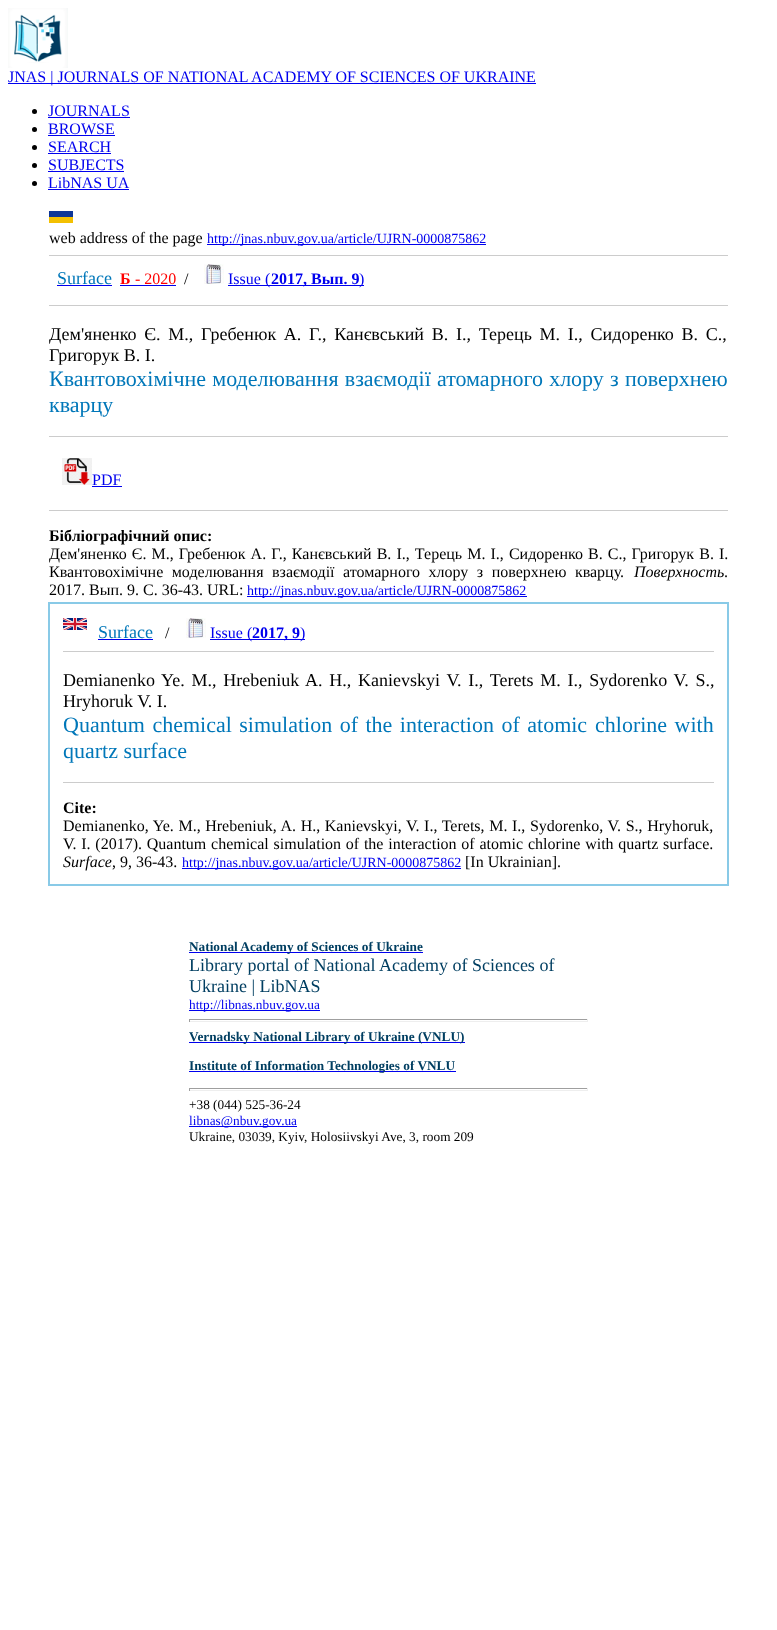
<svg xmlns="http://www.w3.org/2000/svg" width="777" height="1630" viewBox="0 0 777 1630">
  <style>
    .t1 { font: 16px Liberation Serif; fill: #00e; }
    .t2 { font: 16px Liberation Serif; fill: #000; }
    .t3 { font: 14px Liberation Serif; fill: #00e; }
    .t4 { font: 18px Liberation Serif; fill: #0077b9; }
    .t5 { font: bold 16px Liberation Serif; fill: #f00; }
    .t6 { font: 16px Liberation Serif; fill: #f00; }
    .t7 { font: bold 16px Liberation Serif; fill: #00e; }
    .t8 { font: 18px Liberation Serif; fill: #000; }
    .t9 { font: 22px Liberation Serif; fill: #0077b9; }
    .t10 { font: bold 16px Liberation Serif; fill: #000; }
    .t11 { font: italic 16px Liberation Serif; fill: #000; }
    .t12 { font: bold 13.3px Liberation Serif; fill: #003e61; }
    .t13 { font: 18px Liberation Serif; fill: #003e61; }
    .t14 { font: 13.3px Liberation Serif; fill: #00e; }
    .t15 { font: 13.3px Liberation Serif; fill: #000; }
  </style>
  <rect width="100%" height="100%" fill="#fff"/>
  <image x="8" y="8" width="60" height="60" href="images/1.png"/>
  <rect x="8" y="83" width="528" height="1" fill="#00e"/>
  <text x="8" y="82" class="t1">JNAS | JOURNALS OF NATIONAL ACADEMY OF SCIENCES OF UKRAINE</text>
  <circle cx="34.5" cy="111.5" r="2.5" fill="#000"/>
  <text x="48" y="116" class="t1">JOURNALS</text>
  <rect x="48" y="117" width="82" height="1" fill="#00e"/>
  <circle cx="34.5" cy="129.5" r="2.5" fill="#000"/>
  <text x="48" y="134" class="t1">BROWSE</text>
  <rect x="48" y="135" width="67" height="1" fill="#00e"/>
  <circle cx="34.5" cy="147.5" r="2.5" fill="#000"/>
  <text x="48" y="152" class="t1">SEARCH</text>
  <rect x="48" y="153" width="63" height="1" fill="#00e"/>
  <circle cx="34.5" cy="165.5" r="2.5" fill="#000"/>
  <text x="48" y="170" class="t1">SUBJECTS</text>
  <rect x="48" y="171" width="76" height="1" fill="#00e"/>
  <circle cx="34.5" cy="183.5" r="2.5" fill="#000"/>
  <text x="48" y="188" class="t1">LibNAS UA</text>
  <rect x="48" y="189" width="81" height="1" fill="#00e"/>
  <image x="49" y="211" width="24" height="12" href="images/2.png"/>
  <text x="49" y="243" class="t2">web address of the page</text>
  <rect x="207" y="244" width="279" height="1" fill="#00e"/>
  <text x="207" y="243" class="t3">http://jnas.nbuv.gov.ua/article/UJRN-0000875862</text>
  <rect x="49" y="255" width="679" height="1" fill="#ccc"/>
  <text x="57" y="284" class="t4">Surface</text>
  <rect x="57" y="285" width="55" height="1" fill="#00e"/>
  <text x="120" y="284" class="t5">Б</text>
  <rect x="120" y="285" width="56" height="1" fill="#00e"/>
  <text x="135" y="284" class="t6">- 2020</text>
  <text x="184" y="284" class="t2">/</text>
  <image x="204" y="264" width="20" height="20" href="images/3.png"/>
  <rect x="228" y="285" width="136" height="1" fill="#00e"/>
  <text x="228" y="284" class="t1">Issue (</text>
  <text x="271" y="284" class="t7">2017, Вып. 9</text>
  <text x="359" y="284" class="t1">)</text>
  <rect x="49" y="305" width="679" height="1" fill="#ccc"/>
  <text x="49" y="340" word-spacing="3.25" class="t8">Дем'яненко Є. М., Гребенюк А. Г., Канєвський В. І., Терець М. І., Сидоренко В. С.,</text>
  <text x="49" y="361" class="t8">Григорук В. І.</text>
  <text x="49" y="386" word-spacing="0.75" class="t9">Квантовохімічне моделювання взаємодії атомарного хлору з поверхнею</text>
  <text x="49" y="412" class="t9">кварцу</text>
  <rect x="49" y="436" width="679" height="1" fill="#ccc"/>
  <image x="62" y="458" width="30" height="27" href="images/4.png"/>
  <text x="92" y="485" class="t1">PDF</text>
  <rect x="92" y="486" width="30" height="1" fill="#00e"/>
  <rect x="49" y="510" width="679" height="1" fill="#ccc"/>
  <text x="49" y="541" class="t10">Бібліографічний опис:</text>
  <text x="49" y="559" word-spacing="1.1" class="t2">Дем'яненко Є. М., Гребенюк А. Г., Канєвський В. І., Терець М. І., Сидоренко В. С., Григорук В. І.</text>
  <text x="49" y="577" word-spacing="4.5" class="t2">Квантовохімічне моделювання взаємодії атомарного хлору з поверхнею кварцу.</text>
  <text x="634" y="577" class="t11">Поверхность</text>
  <text x="724" y="577" class="t2">.</text>
  <text x="49" y="595" class="t2">2017. Вып. 9. С. 36-43. URL:</text>
  <rect x="247" y="596" width="280" height="1" fill="#00e"/>
  <text x="247" y="595" class="t3">http://jnas.nbuv.gov.ua/article/UJRN-0000875862</text>
  <rect x="49" y="603" width="679" height="282" fill="none" stroke="#89cae7" stroke-width="2"/>
  <image x="63" y="618" width="24" height="12" href="images/5.png"/>
  <text x="98" y="638" class="t4">Surface</text>
  <rect x="98" y="639" width="55" height="1" fill="#00e"/>
  <text x="165" y="638" class="t2">/</text>
  <image x="186" y="618" width="20" height="20" href="images/6.png"/>
  <rect x="210" y="639" width="95" height="1" fill="#00e"/>
  <text x="210" y="638" class="t1">Issue (</text>
  <text x="252" y="638" class="t7">2017, 9</text>
  <text x="300" y="638" class="t1">)</text>
  <rect x="63" y="651" width="651" height="1" fill="#ccc"/>
  <text x="63" y="686" word-spacing="2.25" class="t8">Demianenko Ye. M., Hrebeniuk A. H., Kanievskyi V. I., Terets M. I., Sydorenko V. S.,</text>
  <text x="63" y="707" class="t8">Hryhoruk V. I.</text>
  <text x="63" y="732" word-spacing="2" class="t9">Quantum chemical simulation of the interaction of atomic</text>
  <text x="595" y="732" word-spacing="2" class="t9">chlorine with</text>
  <text x="63" y="758" class="t9">quartz surface</text>
  <rect x="63" y="782" width="651" height="1" fill="#ccc"/>
  <text x="63" y="813" class="t10">Cite:</text>
  <text x="63" y="831" word-spacing="0.6" class="t2">Demianenko, Ye. M., Hrebeniuk, A. H., Kanievskyi, V. I., Terets, M. I., Sydorenko, V. S., Hryhoruk,</text>
  <text x="63" y="849" word-spacing="0.75" class="t2">V. I. (2017). Quantum chemical simulation of the interaction of atomic</text>
  <text x="528" y="849" word-spacing="0.75" class="t2">chlorine with quartz surface.</text>
  <text x="63" y="867" class="t11">Surface</text>
  <text x="112" y="867" class="t2">, 9, 36-43.</text>
  <rect x="182" y="868" width="279" height="1" fill="#00e"/>
  <text x="182" y="867" class="t3">http://jnas.nbuv.gov.ua/article/UJRN-0000875862</text>
  <text x="465" y="867" class="t2">[In Ukrainian].</text>
  <rect x="189" y="952" width="234" height="1" fill="#00e"/>
  <text x="189" y="951" class="t12">National Academy of Sciences of Ukraine</text>
  <text x="189" y="971" class="t13">Library portal of National Academy of Sciences of</text>
  <text x="189" y="992" class="t13">Ukraine | LibNAS</text>
  <rect x="189" y="1010" width="131" height="1" fill="#00e"/>
  <text x="189" y="1009" class="t14">http://libnas.nbuv.gov.ua</text>
  <rect x="189" y="1019" width="399" height="1" fill="#9f9f9f"/>
  <rect x="587" y="1019" width="1" height="3" fill="#eee"/>
  <rect x="189" y="1021" width="399" height="1" fill="#eee"/>
  <rect x="189" y="1019" width="1" height="3" fill="#9f9f9f"/>
  <rect x="189" y="1042" width="276" height="1" fill="#00e"/>
  <text x="189" y="1041" class="t12">Vernadsky National Library of Ukraine (VNLU)</text>
  <rect x="189" y="1071" width="267" height="1" fill="#00e"/>
  <text x="189" y="1070" class="t12">Institute of Information Technologies of VNLU</text>
  <rect x="189" y="1088" width="399" height="1" fill="#9f9f9f"/>
  <rect x="587" y="1088" width="1" height="3" fill="#eee"/>
  <rect x="189" y="1090" width="399" height="1" fill="#eee"/>
  <rect x="189" y="1088" width="1" height="3" fill="#9f9f9f"/>
  <text x="189" y="1109" class="t15">+38 (044) 525-36-24</text>
  <rect x="189" y="1126" width="108" height="1" fill="#00e"/>
  <text x="189" y="1125" class="t14">libnas@nbuv.gov.ua</text>
  <text x="189" y="1141" class="t15">Ukraine, 03039, Kyiv, Holosiivskyi Ave, 3, room 209</text>
</svg>
